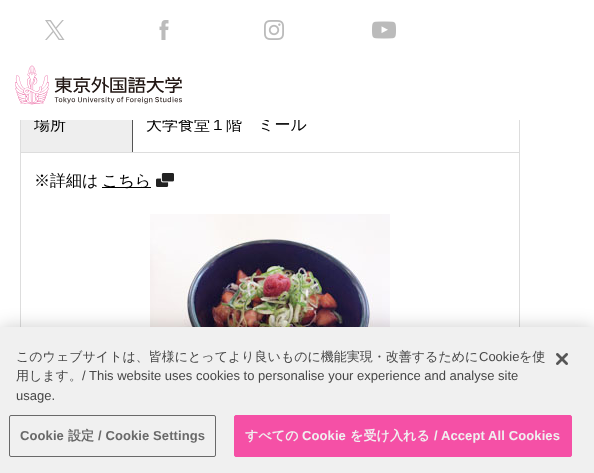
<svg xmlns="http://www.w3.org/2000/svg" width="594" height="473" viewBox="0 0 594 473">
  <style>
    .t1 { font: 500 16px WenQuanYi Zen Hei; fill: #000; }
    .t2 { font: 500 13px WenQuanYi Zen Hei; fill: #474747; }
    .t3 { font: 13px Liberation Sans; fill: #474747; }
    .t4 { font: bold 13px Liberation Sans; letter-spacing: 0.1px; fill: #696969; }
    .t5 { font: bold 13px WenQuanYi Zen Hei; letter-spacing: 0.1px; fill: #696969; }
    .t6 { font: bold 13px WenQuanYi Zen Hei; letter-spacing: 0.1px; fill: #f0f0f0; }
    .t7 { font: bold 13px Liberation Sans; letter-spacing: 0.1px; fill: #f0f0f0; }
  </style>
  <rect width="100%" height="100%" fill="#fff"/>
  <rect x="21" y="120" width="111" height="32" fill="#eee"/>
  <text x="34" y="130" class="t1">場所</text>
  <text x="146" y="130" class="t1">大学食堂１階　ミール</text>
  <rect x="36" y="116" width="264" height="4" fill="#fff"/>
  <image x="45" y="20" width="20" height="20" href="images/1.png"/>
  <image x="159" y="20" width="10" height="20" href="images/2.png"/>
  <image x="264" y="20" width="20" height="20" href="images/3.png"/>
  <image x="372" y="21" width="24" height="18" href="images/4.png"/>
  <image x="15" y="65" width="167" height="40" href="images/5.png"/>
  <rect x="132" y="120" width="1" height="33" fill="#555"/>
  <rect x="20" y="152" width="1" height="175" fill="#ddd"/>
  <rect x="20" y="152" width="113" height="1" fill="#ddd"/>
  <rect x="20" y="120" width="1" height="33" fill="#ddd"/>
  <rect x="133" y="152" width="387" height="1" fill="#ddd"/>
  <rect x="519" y="120" width="1" height="207" fill="#ddd"/>
  <text x="34" y="186" class="t1">※詳細は</text>
  <rect x="102" y="187" width="49" height="1" fill="#000"/>
  <text x="102" y="186" class="t1">こちら</text>
  <image x="156" y="173" width="18" height="14" href="images/6.png"/>
  <image x="150" y="214" width="240" height="113" href="images/7.png"/>
  <rect x="0" y="327" width="594" height="146" fill="#00000033" filter="blur(9px)"/>
  <rect x="0" y="327" width="594" height="146" fill="#f0f0f0"/>
  <text x="16" y="361" class="t2">このウェブサイトは、皆様にとってより良いものに機能実現・改善するために</text>
  <text x="479" y="361" class="t3">Cookie</text>
  <text x="519" y="361" class="t2">を使</text>
  <text x="16" y="380" class="t2">用します。</text>
  <text x="82" y="380" class="t3">/ This website uses cookies to personalise your experience and analyse site</text>
  <text x="16" y="400" class="t3">usage.</text>
  <rect x="9.5" y="415.5" width="206" height="41" rx="1.5" fill="none" stroke="#696969"/>
  <text x="20" y="440" class="t4">Cookie</text>
  <text x="68" y="440" class="t5">設定</text>
  <text x="98" y="440" class="t4">/ Cookie Settings</text>
  <rect x="234.5" y="415.5" width="337" height="41" rx="1.5" fill="#f550a6" stroke="#f550a6"/>
  <text x="245" y="440" class="t6">すべての</text>
  <text x="302" y="440" class="t7">Cookie</text>
  <text x="350" y="440" class="t6">を受け入れる</text>
  <text x="434" y="440" class="t7">/ Accept All Cookies</text>
  <image x="556" y="353" width="12" height="12" href="images/8.png"/>
</svg>
